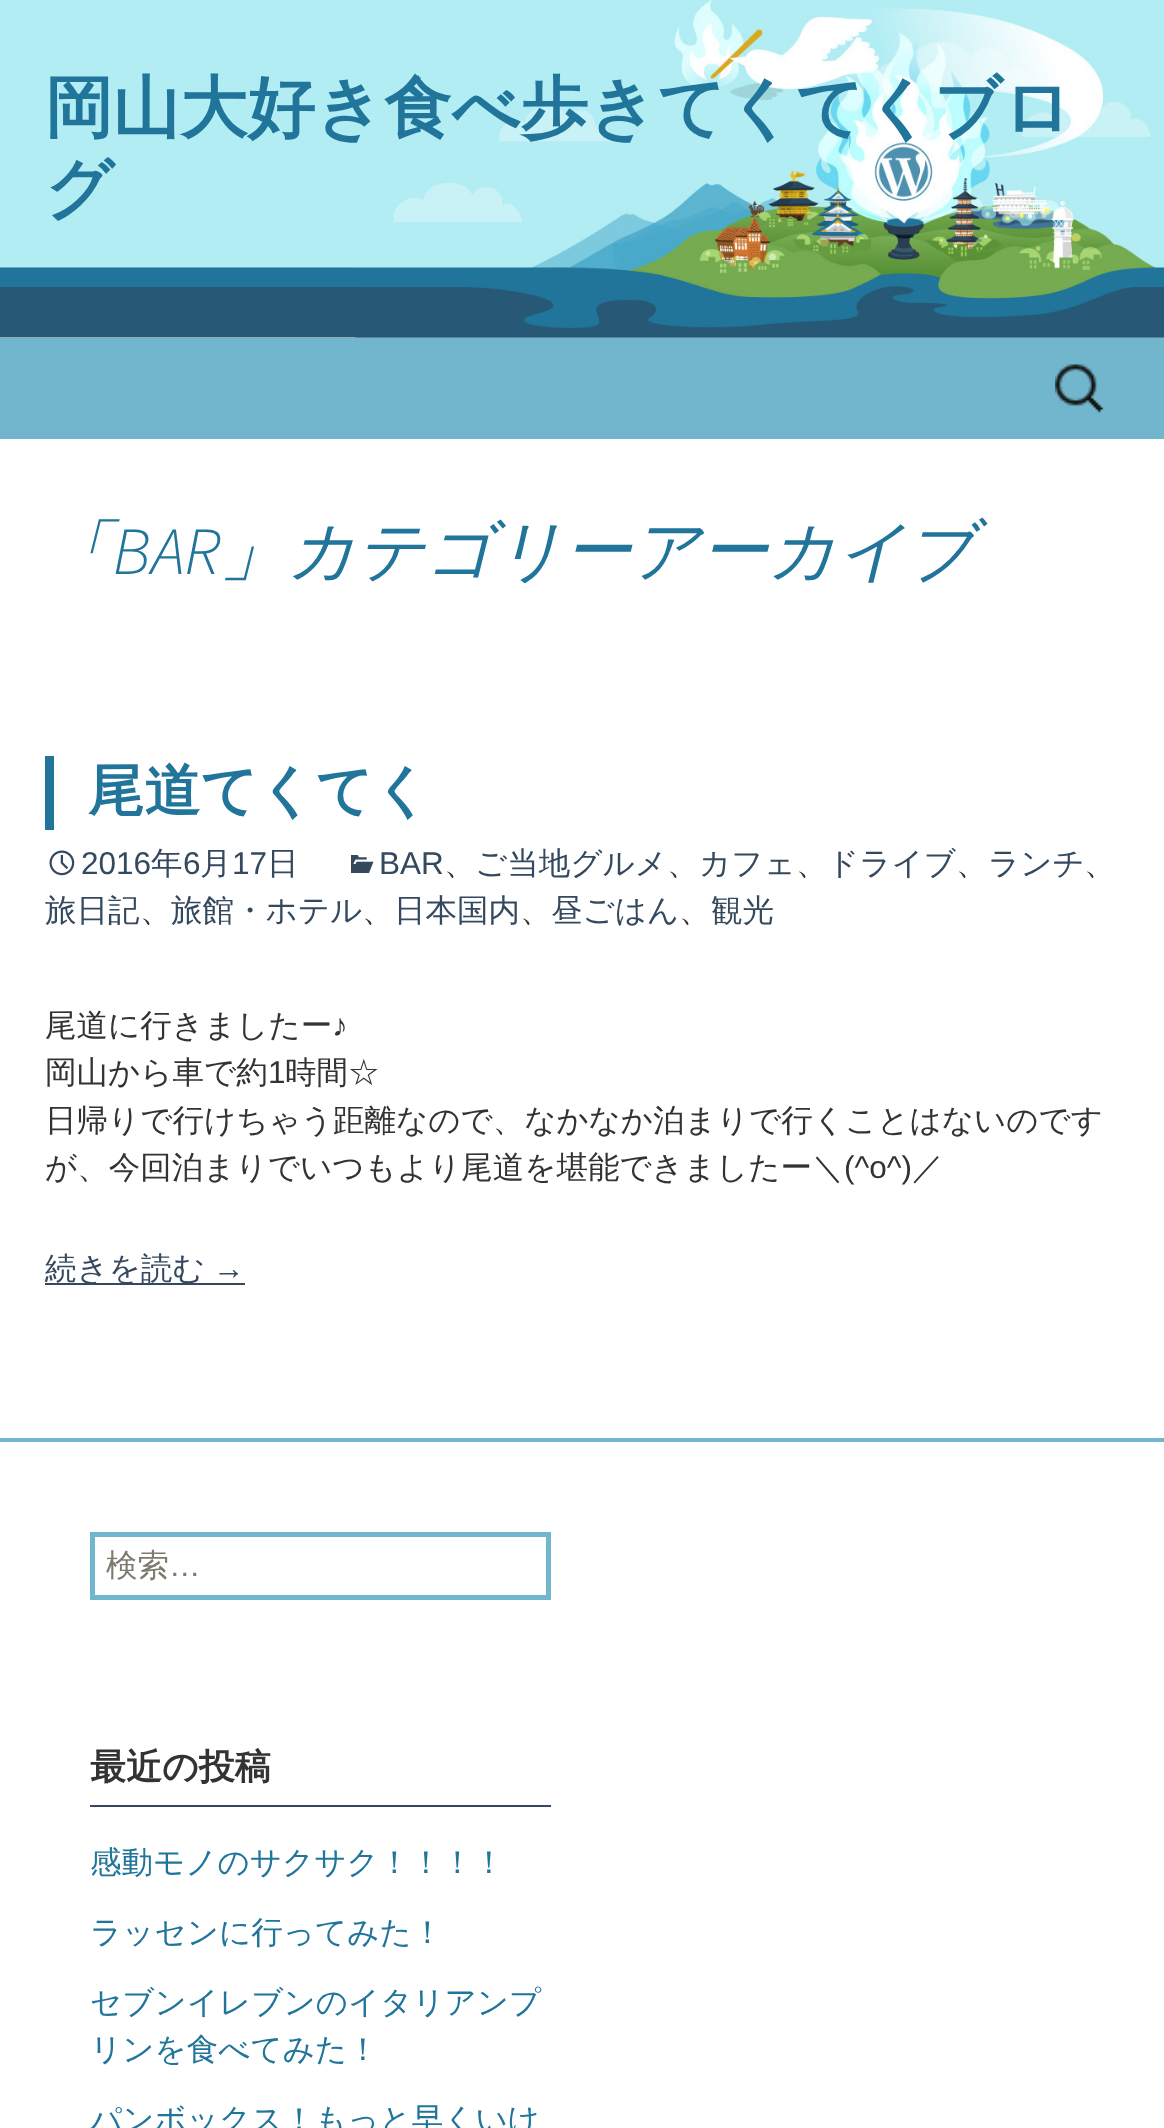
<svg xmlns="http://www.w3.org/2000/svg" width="1164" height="2128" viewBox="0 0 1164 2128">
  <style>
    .t1 { font: bold 67.5px WenQuanYi Zen Hei; fill: #21759b; }
    .t2 { font: italic 500 67.5px WenQuanYi Zen Hei; fill: #21759b; }
    .t3 { font: italic 300 67.5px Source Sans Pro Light; fill: #21759b; }
    .t4 { font: bold 56.25px WenQuanYi Zen Hei; fill: #21759b; }
    .t5 { font: 31.5px Liberation Sans; fill: #34495e; }
    .t6 { font: 500 31.5px WenQuanYi Zen Hei; fill: #333; }
    .t7 { font: 500 31.5px WenQuanYi Zen Hei; fill: #34495e; }
    .t8 { font: 31.5px Liberation Sans; fill: #333; }
    .t9 { font: 500 31.5px WenQuanYi Zen Hei; fill: #7d7b6d; }
    .t10 { font: 31.5px Liberation Sans; fill: #7d7b6d; }
    .t11 { font: bold 36px WenQuanYi Zen Hei; fill: #333; }
    .t12 { font: 500 31.5px WenQuanYi Zen Hei; fill: #21759b; }
  </style>
  <rect width="100%" height="100%" fill="#fff"/>
  <image x="0" y="0" width="1164" height="338" href="images/1.png"/>
  <text x="45" y="131" class="t1">岡山大好き食べ歩きてくてくブロ</text>
  <text x="45" y="212" class="t1">グ</text>
  <rect x="0" y="338" width="1164" height="101" fill="#72b6ce"/>
  <image x="1055" y="364" width="49" height="49" href="images/2.png"/>
  <text x="45" y="574" class="t2">「</text>
  <text x="113" y="574" class="t3">BAR</text>
  <text x="220" y="574" class="t2">」カテゴリーアーカイブ</text>
  <rect x="45" y="756" width="9" height="74" fill="#21759b"/>
  <text x="88" y="810" class="t4">尾道てくてく</text>
  <image x="351" y="855" width="23" height="18" href="images/3.png"/>
  <text x="379" y="874" class="t5">BAR</text>
  <text x="444" y="874" class="t6">、</text>
  <text x="475" y="874" class="t7">ご当地グルメ</text>
  <text x="667" y="874" class="t6">、</text>
  <text x="699" y="874" class="t7">カフェ</text>
  <text x="796" y="874" class="t6">、</text>
  <text x="827" y="874" class="t7">ドライブ</text>
  <text x="956" y="874" class="t6">、</text>
  <text x="988" y="874" class="t7">ランチ</text>
  <text x="1084" y="874" class="t6">、</text>
  <text x="45" y="921" class="t7">旅日記</text>
  <text x="140" y="921" class="t6">、</text>
  <text x="171" y="921" class="t7">旅館・ホテル</text>
  <text x="362" y="921" class="t6">、</text>
  <text x="394" y="921" class="t7">日本国内</text>
  <text x="520" y="921" class="t6">、</text>
  <text x="551" y="921" class="t7">昼ごはん</text>
  <text x="679" y="921" class="t6">、</text>
  <text x="711" y="921" class="t7">観光</text>
  <image x="49" y="850" width="26" height="26" href="images/4.png"/>
  <text x="81" y="874" class="t5">2016</text>
  <text x="151" y="874" class="t7">年</text>
  <text x="183" y="874" class="t5">6</text>
  <text x="200" y="874" class="t7">月</text>
  <text x="232" y="874" class="t5">17</text>
  <text x="267" y="874" class="t7">日</text>
  <text x="45" y="1036" class="t6">尾道に行きましたー</text>
  <text x="332" y="1036" class="t8">♪</text>
  <text x="45" y="1083" class="t6">岡山から車で約</text>
  <text x="268" y="1083" class="t8">1</text>
  <text x="285" y="1083" class="t6">時間☆</text>
  <text x="45" y="1131" class="t6">日帰りで行けちゃう距離なので、なかなか泊まりで行くことはないのです</text>
  <text x="45" y="1178" class="t6">が、今回泊まりでいつもより尾道を堪能できましたー＼</text>
  <text x="844" y="1178" class="t8">(^o^)</text>
  <text x="912" y="1178" class="t6">／</text>
  <rect x="45" y="1283" width="200" height="2" fill="#34495e"/>
  <text x="45" y="1279" class="t7">続きを読む</text>
  <text x="213" y="1279" class="t5">→</text>
  <rect x="0" y="1438" width="1164" height="4" fill="#72b6ce"/>
  <rect x="92.5" y="1534.5" width="456" height="63" fill="none" stroke="#72b6ce" stroke-width="5"/>
  <text x="106" y="1576" class="t9">検索</text>
  <text x="169" y="1576" class="t10">…</text>
  <rect x="90" y="1805" width="461" height="2" fill="#34495e"/>
  <text x="90" y="1779" class="t11">最近の投稿</text>
  <text x="90" y="1873" class="t12">感動モノのサクサク！！！！</text>
  <text x="90" y="1943" class="t12">ラッセンに行ってみた！</text>
  <text x="90" y="2013" class="t12">セブンイレブンのイタリアンプ</text>
  <text x="90" y="2060" class="t12">リンを食べてみた！</text>
  <text x="90" y="2130" class="t12">パンボックス！もっと早くいけ</text>
</svg>
